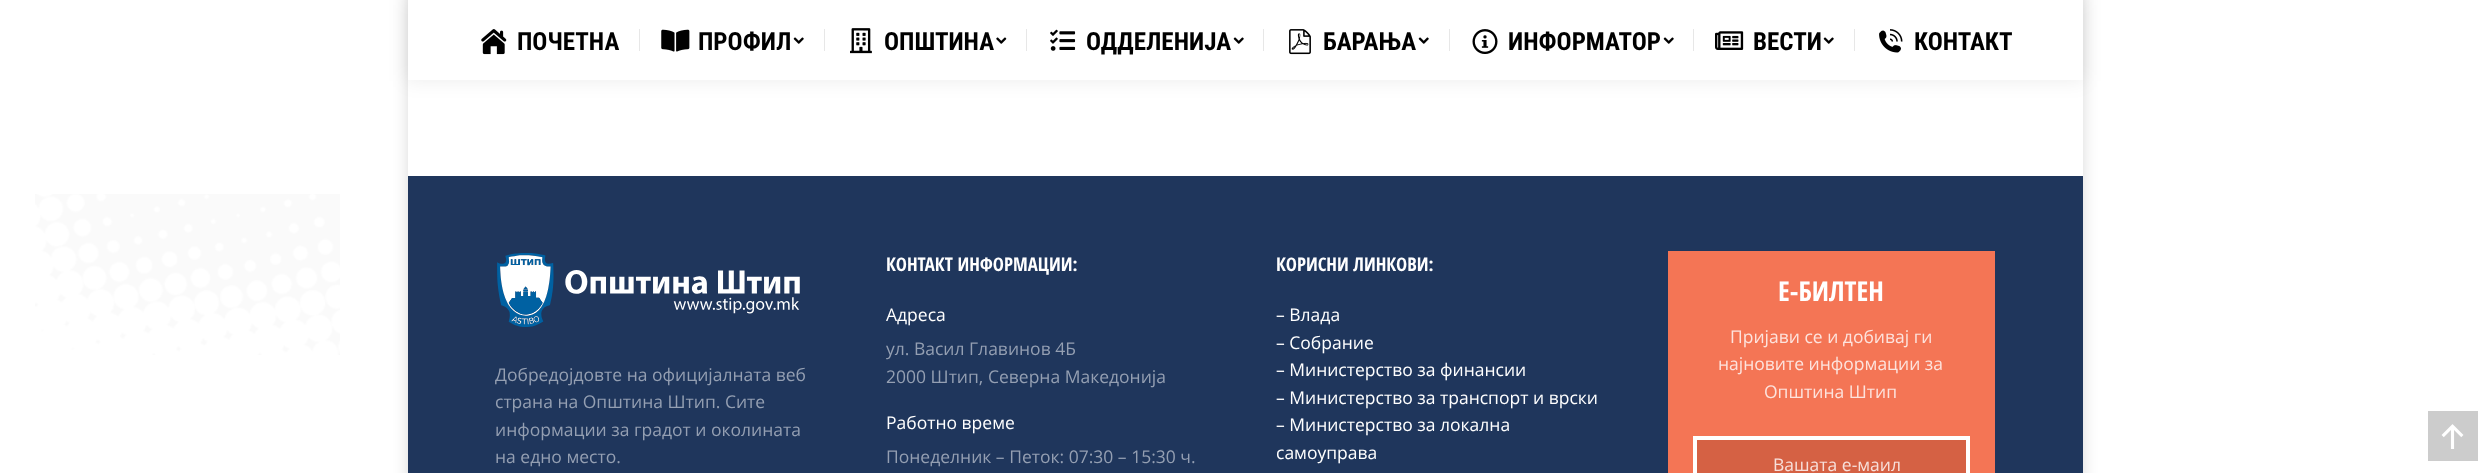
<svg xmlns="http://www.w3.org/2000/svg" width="2490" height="473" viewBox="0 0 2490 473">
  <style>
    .t1 { font: bold 25px Roboto Condensed; fill: #000; }
    .t2 { font: 17.5px Open Sans; fill: #949fb2; }
    .t3 { font: bold 18.75px Open Sans Condensed; fill: #fff; }
    .t4 { font: 17.5px Open Sans; fill: #fff; }
    .t5 { font: bold 27.5px Open Sans Condensed; fill: #fff; }
    .t6 { font: 17.5px Open Sans; fill: #fde3dd; }
    .t7 { font: 17.5px Open Sans; fill: #f7dfda; }
  </style>
  <rect width="100%" height="100%" fill="#fff"/>
  <image x="35" y="194" width="305" height="161" href="images/1.png"/>
  <rect x="408" y="-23" width="1675" height="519" fill="#00000026" filter="blur(7.5px)"/>
  <rect x="408" y="80" width="1675" height="96" fill="#fff"/>
  <rect x="406" y="-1" width="1678" height="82" fill="#00000012" filter="blur(9.5px)"/>
  <rect x="408" y="0" width="1675" height="80" fill="#fff"/>
  <image x="481" y="29" width="26" height="26" href="images/2.png"/>
  <text x="517" y="50" class="t1">ПОЧЕТНА</text>
  <rect x="639" y="29" width="1" height="22" fill="#e7e7e7"/>
  <image x="661" y="29" width="29" height="23" href="images/3.png"/>
  <text x="698" y="50" class="t1">ПРОФИЛ</text>
  <image x="793" y="37" width="11" height="7" href="images/4.png"/>
  <rect x="824" y="29" width="1" height="22" fill="#e7e7e7"/>
  <image x="850" y="28" width="22" height="26" href="images/5.png"/>
  <text x="884" y="50" class="t1">ОПШТИНА</text>
  <image x="996" y="37" width="11" height="7" href="images/6.png"/>
  <rect x="1026" y="29" width="1" height="22" fill="#e7e7e7"/>
  <image x="1050" y="29" width="26" height="22" href="images/7.png"/>
  <text x="1086" y="50" class="t1">ОДДЕЛЕНИЈА</text>
  <image x="1233" y="37" width="11" height="7" href="images/4.png"/>
  <rect x="1263" y="29" width="1" height="22" fill="#e7e7e7"/>
  <image x="1289" y="29" width="22" height="26" href="images/8.png"/>
  <text x="1323" y="50" class="t1">БАРАЊА</text>
  <image x="1418" y="37" width="11" height="7" href="images/4.png"/>
  <rect x="1449" y="29" width="1" height="22" fill="#e7e7e7"/>
  <image x="1472" y="29" width="26" height="25" href="images/9.png"/>
  <text x="1508" y="50" class="t1">ИНФОРМАТОР</text>
  <image x="1663" y="37" width="11" height="7" href="images/4.png"/>
  <rect x="1693" y="29" width="1" height="22" fill="#e7e7e7"/>
  <image x="1715" y="31" width="29" height="19" href="images/10.png"/>
  <text x="1753" y="50" class="t1">ВЕСТИ</text>
  <image x="1823" y="37" width="11" height="7" href="images/4.png"/>
  <rect x="1854" y="29" width="1" height="22" fill="#e7e7e7"/>
  <image x="1879" y="29" width="24" height="24" href="images/11.png"/>
  <text x="1914" y="50" class="t1">КОНТАКТ</text>
  <rect x="408" y="176" width="1675" height="297" fill="#1f365c"/>
  <image x="497" y="253" width="303" height="74" href="images/12.png"/>
  <text x="495" y="381" class="t2">Добредојдовте на официјалната веб</text>
  <text x="495" y="408" class="t2">страна на Општина Штип. Сите</text>
  <text x="495" y="436" class="t2">информации за градот и околината</text>
  <text x="495" y="463" class="t2">на едно место.</text>
  <text x="886" y="271" class="t3">КОНТАКТ ИНФОРМАЦИИ:</text>
  <text x="886" y="321" class="t4">Адреса</text>
  <text x="886" y="355" class="t2">ул. Васил Главинов 4Б</text>
  <text x="886" y="383" class="t2">2000 Штип, Северна Македонија</text>
  <text x="886" y="429" class="t4">Работно време</text>
  <text x="886" y="463" class="t2">Понеделник – Петок: 07:30 – 15:30 ч.</text>
  <text x="1276" y="271" class="t3">КОРИСНИ ЛИНКОВИ:</text>
  <text x="1276" y="321" class="t4">– Влада</text>
  <text x="1276" y="349" class="t4">– Собрание</text>
  <text x="1276" y="376" class="t4">– Министерство за финансии</text>
  <text x="1276" y="404" class="t4">– Министерство за транспорт и врски</text>
  <text x="1276" y="431" class="t4">– Министерство за локална</text>
  <text x="1276" y="459" class="t4">самоуправа</text>
  <rect x="1668" y="251" width="327" height="222" fill="#f47555"/>
  <text x="1778" y="301" class="t5">Е-БИЛТЕН</text>
  <text x="1730" y="343" class="t6">Пријави се и добивај ги</text>
  <text x="1718" y="370" class="t6">најновите информации за</text>
  <text x="1764" y="398" class="t6">Општина Штип</text>
  <rect x="1695" y="438" width="273" height="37" fill="#d56144" stroke="#fff" stroke-width="4"/>
  <text x="1773" y="471" class="t7">Вашата е-маил</text>
  <rect x="2428" y="411" width="50" height="50" fill="#ccc"/>
  <image x="2441" y="424" width="23" height="25" href="images/13.png"/>
</svg>
